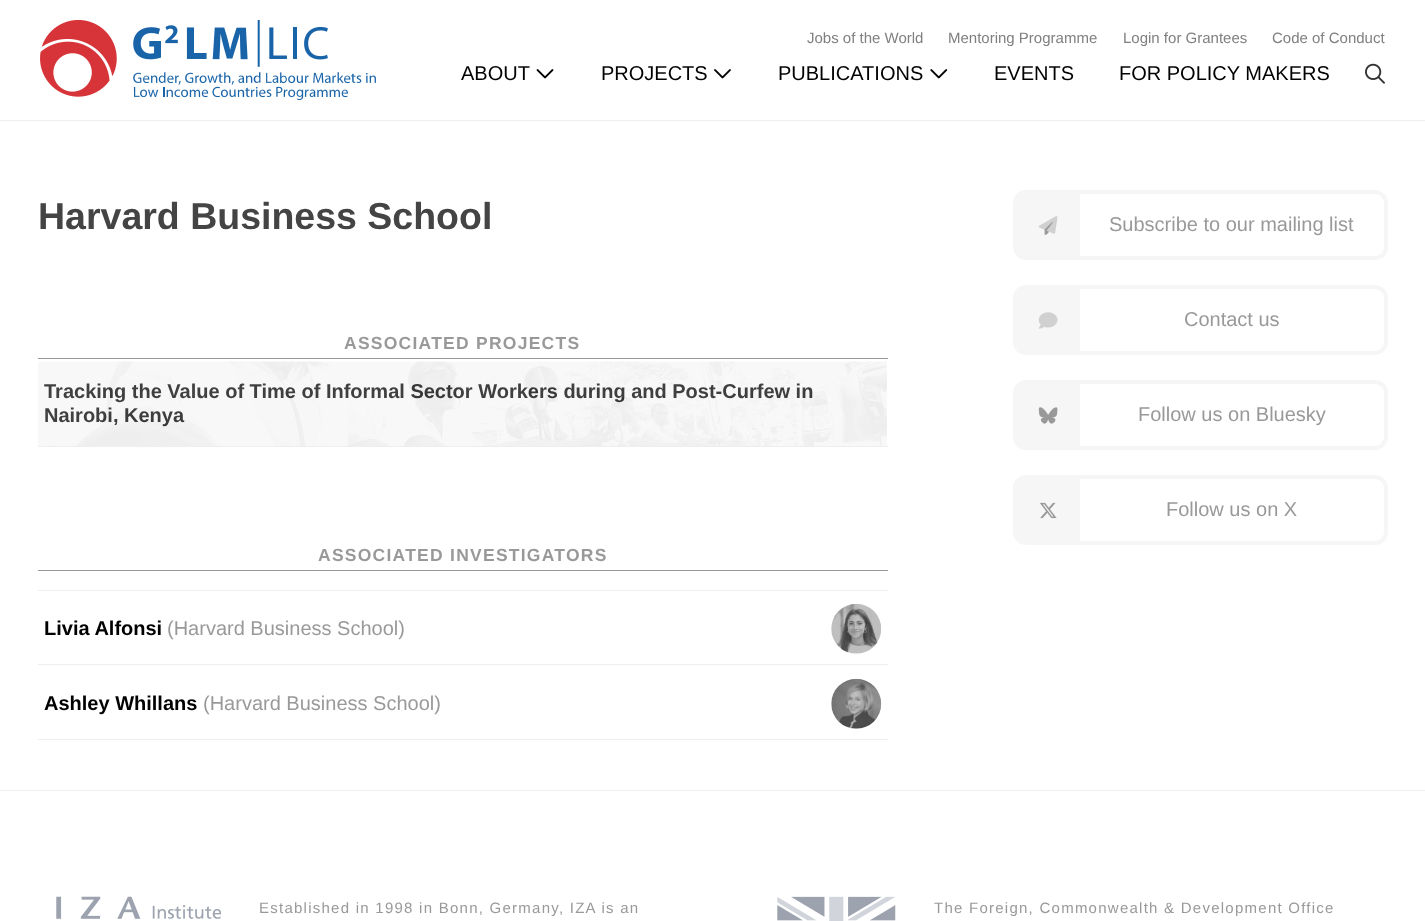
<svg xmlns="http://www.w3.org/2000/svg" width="1425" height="921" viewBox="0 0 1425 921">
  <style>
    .t1 { font: 15px Liberation Sans; fill: #808080; }
    .t2 { font: 20px Liberation Sans; fill: #010101; }
    .t3 { font: bold 37.5px Liberation Sans; fill: #444; }
    .t4 { font: bold 17.5px Liberation Sans; letter-spacing: 1.25px; fill: #999; }
    .t5 { font: bold 20px Liberation Sans; fill: #333; }
    .t6 { font: bold 20px Liberation Sans; fill: #010101; }
    .t7 { font: 20px Liberation Sans; fill: #999; }
    .t8 { font: 15px Liberation Sans; letter-spacing: 1.25px; fill: #999; }
  </style>
  <rect width="100%" height="100%" fill="#fff"/>
  <rect x="0" y="120" width="1425" height="1" fill="#eee"/>
  <image x="40" y="20" width="336" height="80" href="images/1.png"/>
  <text x="807" y="43" class="t1">Jobs of the World</text>
  <text x="948" y="43" class="t1">Mentoring Programme</text>
  <text x="1123" y="43" class="t1">Login for Grantees</text>
  <text x="1272" y="43" class="t1">Code of Conduct</text>
  <text x="461" y="80" class="t2">ABOUT</text>
  <image x="536" y="69" width="18" height="10" href="images/2.png"/>
  <text x="601" y="80" class="t2">PROJECTS</text>
  <image x="714" y="69" width="17" height="10" href="images/3.png"/>
  <text x="778" y="80" class="t2">PUBLICATIONS</text>
  <image x="930" y="69" width="18" height="10" href="images/4.png"/>
  <text x="994" y="80" class="t2">EVENTS</text>
  <text x="1119" y="80" class="t2">FOR POLICY MAKERS</text>
  <image x="1365" y="63" width="20" height="21" href="images/5.png"/>
  <text x="38" y="229" class="t3">Harvard Business School</text>
  <rect x="38" y="358" width="850" height="1" fill="#999"/>
  <text x="344" y="349" class="t4">ASSOCIATED PROJECTS</text>
  <rect x="38" y="446" width="850" height="1" fill="#eee"/>
  <text x="44" y="398" class="t5">Tracking the Value of Time of Informal Sector Workers during and Post-Curfew in</text>
  <text x="44" y="422" class="t5">Nairobi, Kenya</text>
  <image x="38" y="361" width="849" height="85" href="images/6.png"/>
  <rect x="38" y="570" width="850" height="1" fill="#999"/>
  <text x="318" y="561" class="t4">ASSOCIATED INVESTIGATORS</text>
  <rect x="38" y="590" width="850" height="1" fill="#eee"/>
  <rect x="38" y="664" width="850" height="1" fill="#eee"/>
  <text x="44" y="635" class="t6">Livia Alfonsi</text>
  <text x="167" y="635" class="t7">(Harvard Business School)</text>
  <image x="831" y="603" width="50" height="51" href="images/7.png"/>
  <rect x="38" y="739" width="850" height="1" fill="#eee"/>
  <text x="44" y="710" class="t6">Ashley Whillans</text>
  <text x="203" y="710" class="t7">(Harvard Business School)</text>
  <image x="831" y="678" width="51" height="51" href="images/8.png"/>
  <rect x="1015" y="192" width="371" height="66" rx="11" fill="none" stroke="#f6f6f6" stroke-width="4"/>
  <path d="M1025 194H1080V256H1025C1020 256 1016 252 1016 247V203C1016 198 1020 194 1025 194Z" fill="#f6f6f6"/>
  <image x="1044" y="222" width="9" height="13" href="images/10.png"/>
  <image x="1038" y="216" width="20" height="18" href="images/9.png"/>
  <text x="1109" y="231" class="t7">Subscribe to our mailing list</text>
  <rect x="1015" y="287" width="371" height="66" rx="11" fill="none" stroke="#f6f6f6" stroke-width="4"/>
  <path d="M1025 289H1080V351H1025C1020 351 1016 347 1016 342V298C1016 293 1020 289 1025 289Z" fill="#f6f6f6"/>
  <image x="1038" y="312" width="20" height="17" href="images/11.png"/>
  <text x="1184" y="326" class="t7">Contact us</text>
  <rect x="1015" y="382" width="371" height="66" rx="11" fill="none" stroke="#f6f6f6" stroke-width="4"/>
  <path d="M1025 384H1080V446H1025C1020 446 1016 442 1016 437V393C1016 388 1020 384 1025 384Z" fill="#f6f6f6"/>
  <image x="1038" y="407" width="20" height="17" href="images/12.png"/>
  <text x="1138" y="421" class="t7">Follow us on Bluesky</text>
  <rect x="1015" y="477" width="371" height="66" rx="11" fill="none" stroke="#f6f6f6" stroke-width="4"/>
  <path d="M1025 479H1080V541H1025C1020 541 1016 537 1016 532V488C1016 483 1020 479 1025 479Z" fill="#f6f6f6"/>
  <image x="1040" y="502" width="17" height="17" href="images/13.png"/>
  <text x="1166" y="516" class="t7">Follow us on X</text>
  <rect x="0" y="790" width="1425" height="1" fill="#eee"/>
  <image x="56" y="896" width="165" height="23" href="images/14.png"/>
  <text x="259" y="913" class="t8">Established in 1998 in Bonn, Germany, IZA is an</text>
  <image x="777" y="896" width="119" height="25" href="images/15.png"/>
  <text x="934" y="913" class="t8">The Foreign, Commonwealth &amp; Development Office</text>
</svg>
